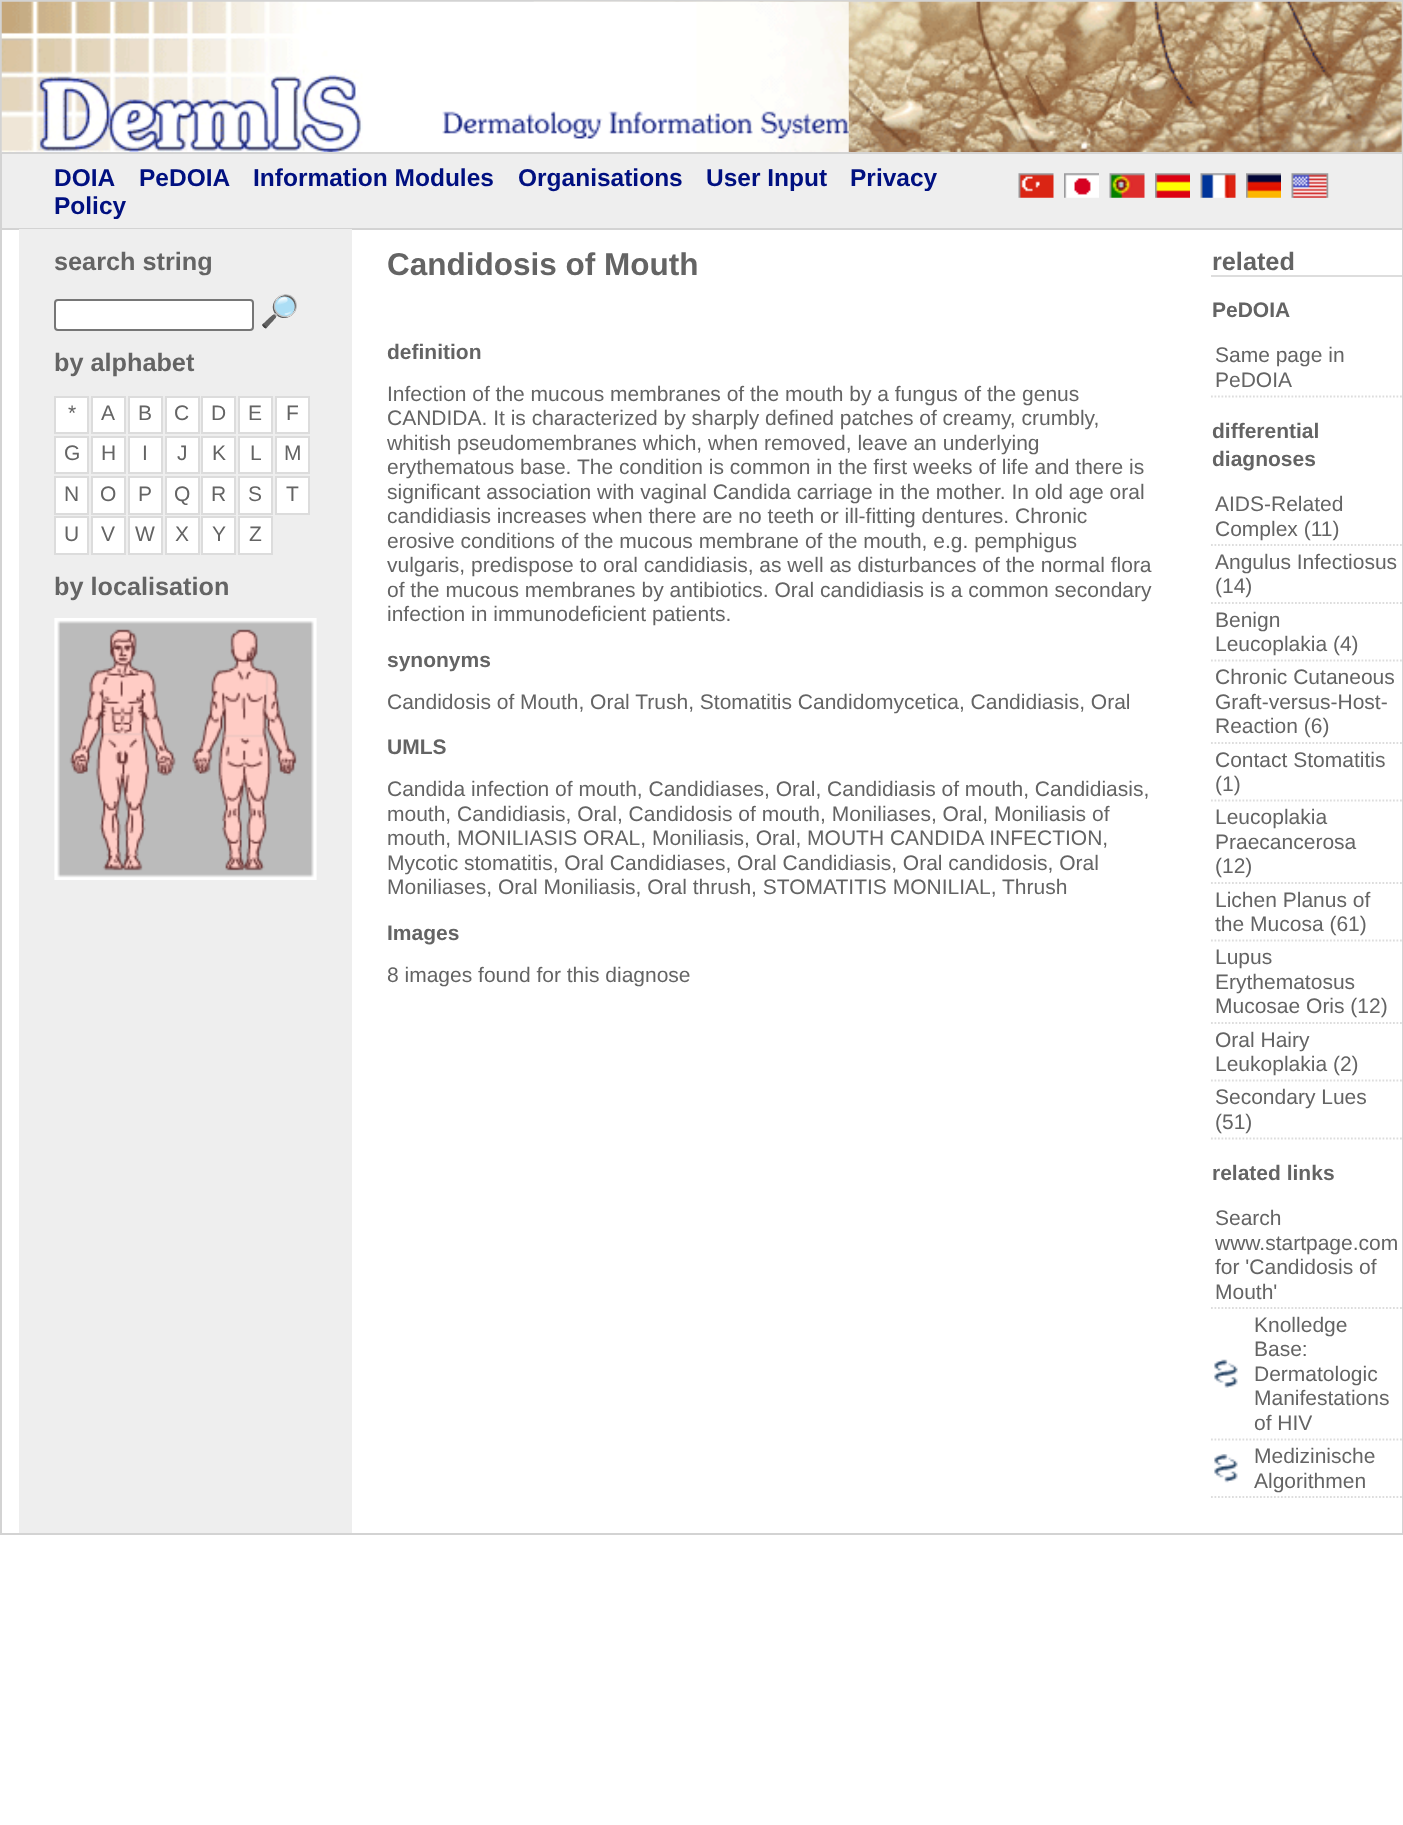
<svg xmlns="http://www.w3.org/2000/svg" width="1403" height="1825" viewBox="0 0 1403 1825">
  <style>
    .t1 { font: bold 24.5px Liberation Sans; fill: #001080; }
    .t2 { font: bold 25.25px Liberation Sans; fill: #646464; }
    .t3 { font: 31.5px Noto Color Emoji; fill: #646464; }
    .t4 { font: 21px Liberation Sans; fill: #646464; }
    .t5 { font: bold 31.5px Liberation Sans; fill: #646464; }
    .t6 { font: bold 21px Liberation Sans; fill: #646464; }
  </style>
  <rect width="100%" height="100%" fill="#fff"/>
  <rect x="1" y="1" width="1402" height="1533" fill="none" stroke="#d3d3d3" stroke-width="2"/>
  <rect x="2" y="2" width="1400" height="226" fill="#eee"/>
  <image x="1" y="1" width="1401" height="152" href="images/1.png"/>
  <rect x="2" y="152" width="1400" height="2" fill="#d3d3d3"/>
  <rect x="2" y="228" width="1400" height="2" fill="#d3d3d3"/>
  <text x="54" y="186" class="t1">DOIA</text>
  <text x="139" y="186" class="t1">PeDOIA</text>
  <text x="253" y="186" class="t1">Information Modules</text>
  <text x="518" y="186" class="t1">Organisations</text>
  <text x="706" y="186" class="t1">User Input</text>
  <text x="850" y="186" class="t1">Privacy</text>
  <image x="1018" y="173" width="36" height="25" href="images/2.png"/>
  <image x="1064" y="173" width="35" height="25" href="images/3.png"/>
  <image x="1109" y="173" width="36" height="25" href="images/4.png"/>
  <image x="1155" y="173" width="35" height="25" href="images/5.png"/>
  <image x="1200" y="173" width="36" height="25" href="images/6.png"/>
  <image x="1246" y="173" width="35" height="25" href="images/7.png"/>
  <image x="1291" y="173" width="38" height="25" href="images/8.png"/>
  <text x="54" y="214" class="t1">Policy</text>
  <rect x="19" y="229" width="333" height="1304" fill="#eee"/>
  <text x="54" y="270" class="t2">search string</text>
  <rect x="55" y="300" width="198" height="30" rx="3" fill="#fff" stroke="#767676" stroke-width="2"/>
  <text x="260" y="322" class="t3">🔎</text>
  <text x="54" y="371" class="t2">by alphabet</text>
  <rect x="55" y="397" width="33" height="36" fill="#fff" stroke="#dcdcdc" stroke-width="2"/>
  <text x="68" y="420" class="t4">*</text>
  <rect x="92" y="397" width="33" height="36" fill="#fff" stroke="#dcdcdc" stroke-width="2"/>
  <text x="101" y="420" class="t4">A</text>
  <rect x="129" y="397" width="33" height="36" fill="#fff" stroke="#dcdcdc" stroke-width="2"/>
  <text x="138" y="420" class="t4">B</text>
  <rect x="166" y="397" width="33" height="36" fill="#fff" stroke="#dcdcdc" stroke-width="2"/>
  <text x="174" y="420" class="t4">C</text>
  <rect x="202" y="397" width="33" height="36" fill="#fff" stroke="#dcdcdc" stroke-width="2"/>
  <text x="211" y="420" class="t4">D</text>
  <rect x="239" y="397" width="33" height="36" fill="#fff" stroke="#dcdcdc" stroke-width="2"/>
  <text x="248" y="420" class="t4">E</text>
  <rect x="276" y="397" width="33" height="36" fill="#fff" stroke="#dcdcdc" stroke-width="2"/>
  <text x="286" y="420" class="t4">F</text>
  <rect x="55" y="437" width="33" height="36" fill="#fff" stroke="#dcdcdc" stroke-width="2"/>
  <text x="64" y="460" class="t4">G</text>
  <rect x="92" y="437" width="33" height="36" fill="#fff" stroke="#dcdcdc" stroke-width="2"/>
  <text x="101" y="460" class="t4">H</text>
  <rect x="129" y="437" width="33" height="36" fill="#fff" stroke="#dcdcdc" stroke-width="2"/>
  <text x="142" y="460" class="t4">I</text>
  <rect x="166" y="437" width="33" height="36" fill="#fff" stroke="#dcdcdc" stroke-width="2"/>
  <text x="177" y="460" class="t4">J</text>
  <rect x="202" y="437" width="33" height="36" fill="#fff" stroke="#dcdcdc" stroke-width="2"/>
  <text x="212" y="460" class="t4">K</text>
  <rect x="239" y="437" width="33" height="36" fill="#fff" stroke="#dcdcdc" stroke-width="2"/>
  <text x="250" y="460" class="t4">L</text>
  <rect x="276" y="437" width="33" height="36" fill="#fff" stroke="#dcdcdc" stroke-width="2"/>
  <text x="284" y="460" class="t4">M</text>
  <rect x="55" y="477" width="33" height="37" fill="#fff" stroke="#dcdcdc" stroke-width="2"/>
  <text x="64" y="501" class="t4">N</text>
  <rect x="92" y="477" width="33" height="37" fill="#fff" stroke="#dcdcdc" stroke-width="2"/>
  <text x="100" y="501" class="t4">O</text>
  <rect x="129" y="477" width="33" height="37" fill="#fff" stroke="#dcdcdc" stroke-width="2"/>
  <text x="138" y="501" class="t4">P</text>
  <rect x="166" y="477" width="33" height="37" fill="#fff" stroke="#dcdcdc" stroke-width="2"/>
  <text x="174" y="501" class="t4">Q</text>
  <rect x="202" y="477" width="33" height="37" fill="#fff" stroke="#dcdcdc" stroke-width="2"/>
  <text x="211" y="501" class="t4">R</text>
  <rect x="239" y="477" width="33" height="37" fill="#fff" stroke="#dcdcdc" stroke-width="2"/>
  <text x="248" y="501" class="t4">S</text>
  <rect x="276" y="477" width="33" height="37" fill="#fff" stroke="#dcdcdc" stroke-width="2"/>
  <text x="286" y="501" class="t4">T</text>
  <rect x="55" y="517" width="33" height="37" fill="#fff" stroke="#dcdcdc" stroke-width="2"/>
  <text x="64" y="541" class="t4">U</text>
  <rect x="92" y="517" width="33" height="37" fill="#fff" stroke="#dcdcdc" stroke-width="2"/>
  <text x="101" y="541" class="t4">V</text>
  <rect x="129" y="517" width="33" height="37" fill="#fff" stroke="#dcdcdc" stroke-width="2"/>
  <text x="135" y="541" class="t4">W</text>
  <rect x="166" y="517" width="33" height="37" fill="#fff" stroke="#dcdcdc" stroke-width="2"/>
  <text x="175" y="541" class="t4">X</text>
  <rect x="202" y="517" width="33" height="37" fill="#fff" stroke="#dcdcdc" stroke-width="2"/>
  <text x="212" y="541" class="t4">Y</text>
  <rect x="239" y="517" width="33" height="37" fill="#fff" stroke="#dcdcdc" stroke-width="2"/>
  <text x="249" y="541" class="t4">Z</text>
  <text x="54" y="595" class="t2">by localisation</text>
  <image x="54" y="618" width="263" height="262" href="images/9.png"/>
  <text x="387" y="275" class="t5">Candidosis of Mouth</text>
  <text x="387" y="359" class="t6">definition</text>
  <text x="387" y="401" class="t4">Infection of the mucous membranes of the mouth by a fungus of the genus</text>
  <text x="387" y="425" class="t4">CANDIDA. It is characterized by sharply defined patches of creamy, crumbly,</text>
  <text x="387" y="450" class="t4">whitish pseudomembranes which, when removed, leave an underlying</text>
  <text x="387" y="474" class="t4">erythematous base. The condition is common in the first weeks of life and there is</text>
  <text x="387" y="499" class="t4">significant association with vaginal Candida carriage in the mother. In old age oral</text>
  <text x="387" y="523" class="t4">candidiasis increases when there are no teeth or ill-fitting dentures. Chronic</text>
  <text x="387" y="548" class="t4">erosive conditions of the mucous membrane of the mouth, e.g. pemphigus</text>
  <text x="387" y="572" class="t4">vulgaris, predispose to oral candidiasis, as well as disturbances of the normal flora</text>
  <text x="387" y="597" class="t4">of the mucous membranes by antibiotics. Oral candidiasis is a common secondary</text>
  <text x="387" y="621" class="t4">infection in immunodeficient patients.</text>
  <text x="387" y="667" class="t6">synonyms</text>
  <text x="387" y="709" class="t4">Candidosis of Mouth, Oral Trush, Stomatitis Candidomycetica, Candidiasis, Oral</text>
  <text x="387" y="754" class="t6">UMLS</text>
  <text x="387" y="796" class="t4">Candida infection of mouth, Candidiases, Oral, Candidiasis of mouth, Candidiasis,</text>
  <text x="387" y="821" class="t4">mouth, Candidiasis, Oral, Candidosis of mouth, Moniliases, Oral, Moniliasis of</text>
  <text x="387" y="845" class="t4">mouth, MONILIASIS ORAL, Moniliasis, Oral, MOUTH CANDIDA INFECTION,</text>
  <text x="387" y="870" class="t4">Mycotic stomatitis, Oral Candidiases, Oral Candidiasis, Oral candidosis, Oral</text>
  <text x="387" y="894" class="t4">Moniliases, Oral Moniliasis, Oral thrush, STOMATITIS MONILIAL, Thrush</text>
  <text x="387" y="940" class="t6">Images</text>
  <text x="387" y="982" class="t4">8 images found for this diagnose</text>
  <rect x="1211" y="275" width="191" height="2" fill="#ddd"/>
  <text x="1212" y="270" class="t2">related</text>
  <text x="1212" y="317" class="t6">PeDOIA</text>
  <path d="M1211 396.5H1402" fill="none" stroke="#ddd" stroke-width="1.8" stroke-dasharray="1.75 1.75"/>
  <text x="1215" y="362" class="t4">Same page in</text>
  <text x="1215" y="387" class="t4">PeDOIA</text>
  <text x="1212" y="438" class="t6">differential</text>
  <text x="1212" y="466" class="t6">diagnoses</text>
  <path d="M1211 545H1402" fill="none" stroke="#ddd" stroke-width="1.8" stroke-dasharray="1.75 1.75"/>
  <text x="1215" y="511" class="t4">AIDS-Related</text>
  <text x="1215" y="536" class="t4">Complex (11)</text>
  <path d="M1211 603H1402" fill="none" stroke="#ddd" stroke-width="1.8" stroke-dasharray="1.75 1.75"/>
  <text x="1215" y="569" class="t4">Angulus Infectiosus</text>
  <text x="1215" y="593" class="t4">(14)</text>
  <path d="M1211 660.5H1402" fill="none" stroke="#ddd" stroke-width="1.8" stroke-dasharray="1.75 1.75"/>
  <text x="1215" y="627" class="t4">Benign</text>
  <text x="1215" y="651" class="t4">Leucoplakia (4)</text>
  <path d="M1211 743H1402" fill="none" stroke="#ddd" stroke-width="1.8" stroke-dasharray="1.75 1.75"/>
  <text x="1215" y="684" class="t4">Chronic Cutaneous</text>
  <text x="1215" y="709" class="t4">Graft-versus-Host-</text>
  <text x="1215" y="733" class="t4">Reaction (6)</text>
  <path d="M1211 800.5H1402" fill="none" stroke="#ddd" stroke-width="1.8" stroke-dasharray="1.75 1.75"/>
  <text x="1215" y="767" class="t4">Contact Stomatitis</text>
  <text x="1215" y="791" class="t4">(1)</text>
  <path d="M1211 883H1402" fill="none" stroke="#ddd" stroke-width="1.8" stroke-dasharray="1.75 1.75"/>
  <text x="1215" y="824" class="t4">Leucoplakia</text>
  <text x="1215" y="849" class="t4">Praecancerosa</text>
  <text x="1215" y="873" class="t4">(12)</text>
  <path d="M1211 940.5H1402" fill="none" stroke="#ddd" stroke-width="1.8" stroke-dasharray="1.75 1.75"/>
  <text x="1215" y="907" class="t4">Lichen Planus of</text>
  <text x="1215" y="931" class="t4">the Mucosa (61)</text>
  <path d="M1211 1023H1402" fill="none" stroke="#ddd" stroke-width="1.8" stroke-dasharray="1.75 1.75"/>
  <text x="1215" y="964" class="t4">Lupus</text>
  <text x="1215" y="989" class="t4">Erythematosus</text>
  <text x="1215" y="1013" class="t4">Mucosae Oris (12)</text>
  <path d="M1211 1080.5H1402" fill="none" stroke="#ddd" stroke-width="1.8" stroke-dasharray="1.75 1.75"/>
  <text x="1215" y="1047" class="t4">Oral Hairy</text>
  <text x="1215" y="1071" class="t4">Leukoplakia (2)</text>
  <path d="M1211 1138.5H1402" fill="none" stroke="#ddd" stroke-width="1.8" stroke-dasharray="1.75 1.75"/>
  <text x="1215" y="1104" class="t4">Secondary Lues</text>
  <text x="1215" y="1129" class="t4">(51)</text>
  <text x="1212" y="1180" class="t6">related links</text>
  <path d="M1211 1308H1402" fill="none" stroke="#ddd" stroke-width="1.8" stroke-dasharray="1.75 1.75"/>
  <text x="1215" y="1225" class="t4">Search</text>
  <text x="1215" y="1250" class="t4">www.startpage.com</text>
  <text x="1215" y="1274" class="t4">for 'Candidosis of</text>
  <text x="1215" y="1299" class="t4">Mouth'</text>
  <image x="1214" y="1359" width="24" height="29" href="images/10.png"/>
  <path d="M1211 1439.5H1402" fill="none" stroke="#ddd" stroke-width="1.8" stroke-dasharray="1.75 1.75"/>
  <text x="1254" y="1332" class="t4">Knolledge</text>
  <text x="1254" y="1356" class="t4">Base:</text>
  <text x="1254" y="1381" class="t4">Dermatologic</text>
  <text x="1254" y="1405" class="t4">Manifestations</text>
  <text x="1254" y="1430" class="t4">of HIV</text>
  <image x="1214" y="1454" width="24" height="29" href="images/11.png"/>
  <path d="M1211 1497H1402" fill="none" stroke="#ddd" stroke-width="1.8" stroke-dasharray="1.75 1.75"/>
  <text x="1254" y="1463" class="t4">Medizinische</text>
  <text x="1254" y="1488" class="t4">Algorithmen</text>
</svg>
